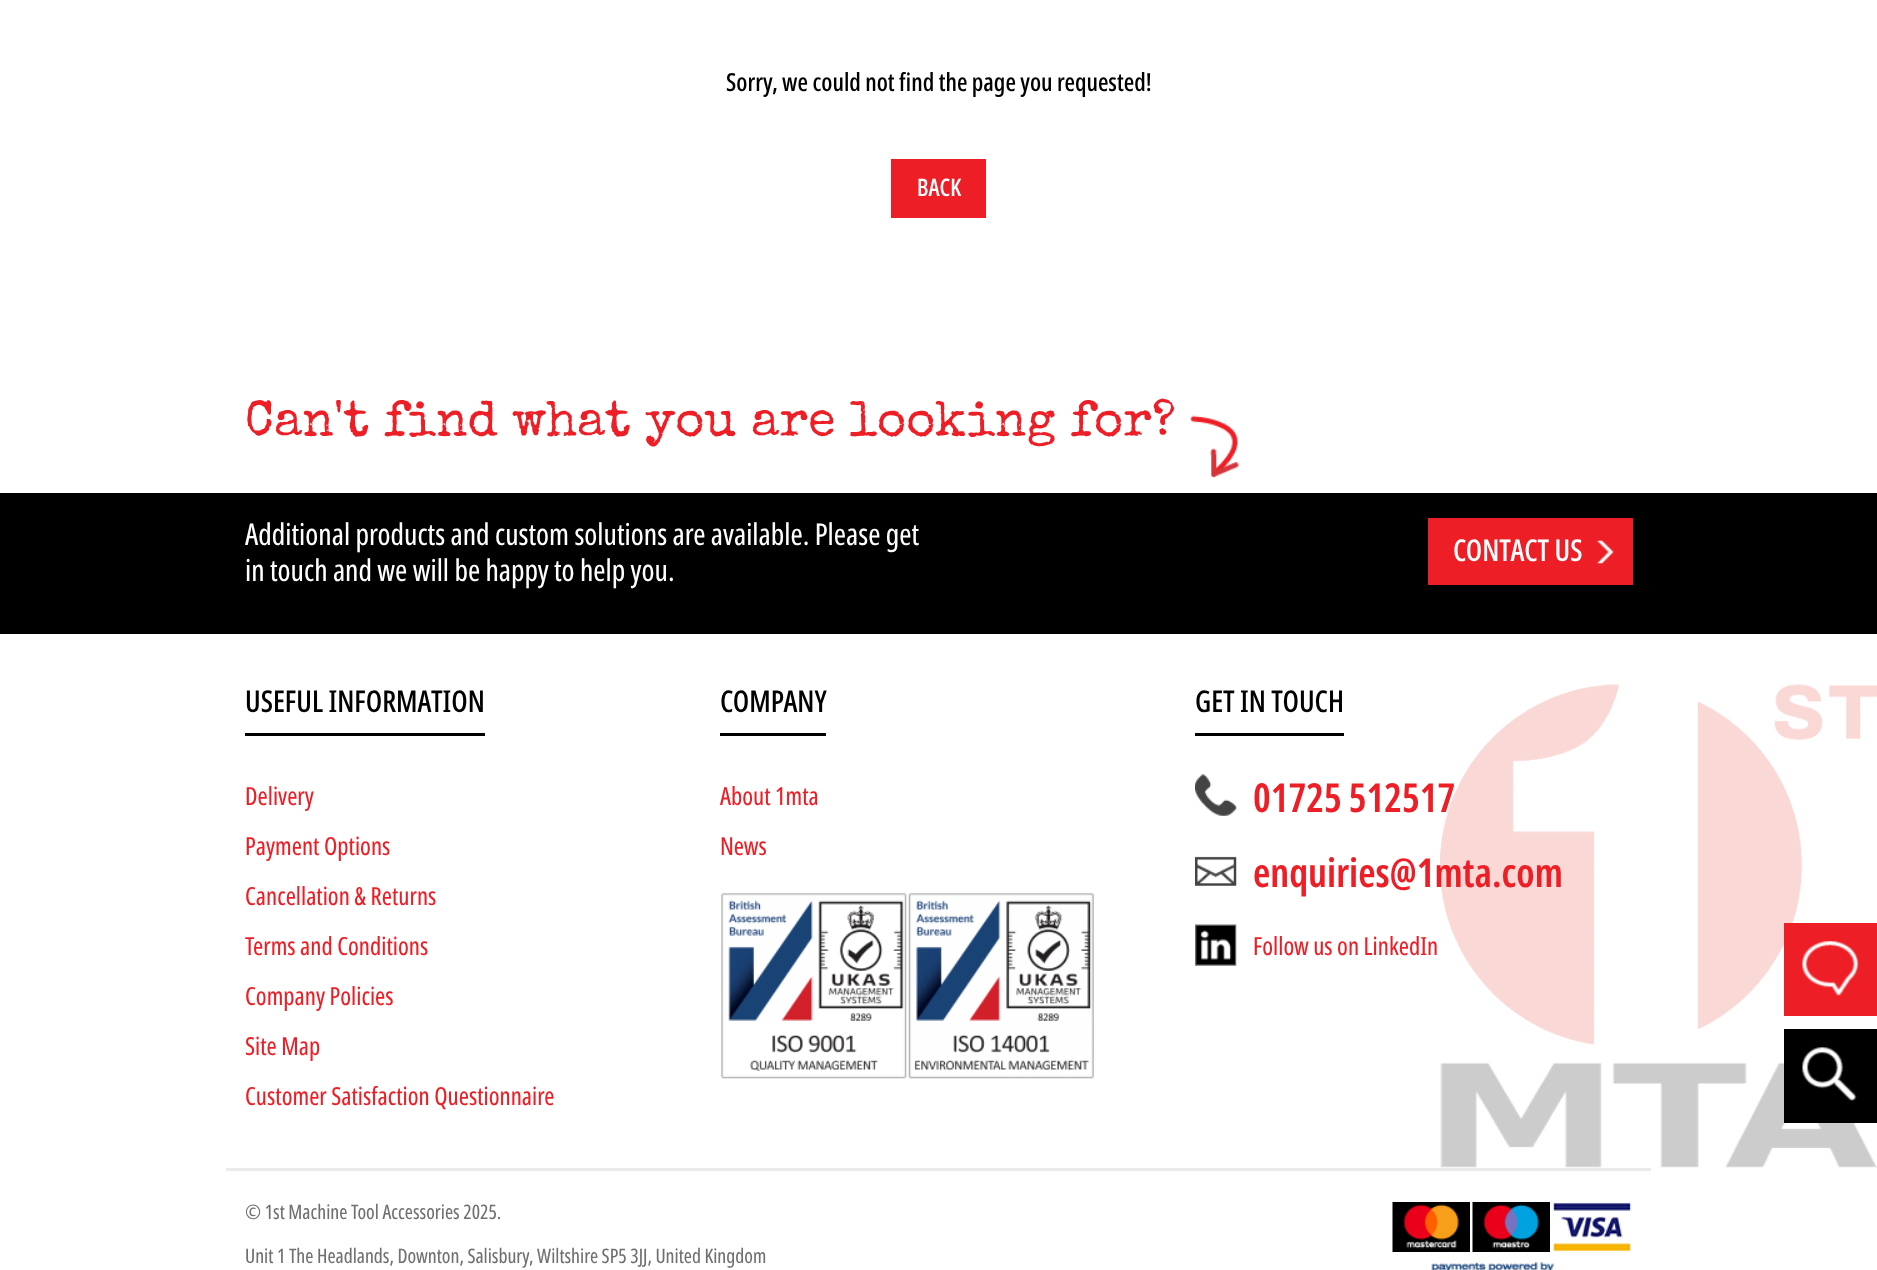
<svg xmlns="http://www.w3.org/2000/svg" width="1877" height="1270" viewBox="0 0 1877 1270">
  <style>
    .t1 { font: 500 25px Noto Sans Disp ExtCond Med; fill: #000; }
    .t2 { font: 500 24px Noto Sans Disp ExtCond Med; fill: #fff; }
    .t3 { font: 50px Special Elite; fill: #ed1e25; }
    .t4 { font: 30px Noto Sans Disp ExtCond; fill: #fff; }
    .t5 { font: 500 30px Noto Sans Disp ExtCond Med; fill: #fff; }
    .t6 { font: 500 30px Noto Sans Disp ExtCond Med; fill: #000; }
    .t7 { font: 25px Noto Sans Disp ExtCond; fill: #ed1e25; }
    .t8 { font: 600 40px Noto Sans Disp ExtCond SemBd; fill: #ed1e25; }
    .t9 { font: 20px Noto Sans Disp ExtCond; fill: #707070; }
  </style>
  <rect width="100%" height="100%" fill="#fff"/>
  <text x="726" y="91" class="t1">Sorry, we could not find the page you requested!</text>
  <rect x="891" y="159" width="95" height="59" fill="#ed1e25"/>
  <text x="917" y="196" class="t2">BACK</text>
  <image x="1440" y="684" width="437" height="484" href="images/1.png"/>
  <text x="245" y="435" class="t3">Can't find what you are looking for?</text>
  <image x="1190" y="415" width="49" height="63" href="images/2.png"/>
  <rect x="0" y="493" width="1877" height="141" fill="#000"/>
  <text x="245" y="545" class="t4">Additional products and custom solutions are available. Please get</text>
  <text x="245" y="581" class="t4">in touch and we will be happy to help you.</text>
  <rect x="1428" y="518" width="205" height="67" fill="#ed1e25"/>
  <image x="1597" y="540" width="17" height="24" href="images/3.png"/>
  <text x="1453" y="561" class="t5">CONTACT US</text>
  <rect x="245" y="733" width="240" height="3" fill="#000"/>
  <text x="245" y="712" class="t6">USEFUL INFORMATION</text>
  <text x="245" y="805" class="t7">Delivery</text>
  <text x="245" y="855" class="t7">Payment Options</text>
  <text x="245" y="905" class="t7">Cancellation &amp; Returns</text>
  <text x="245" y="955" class="t7">Terms and Conditions</text>
  <text x="245" y="1005" class="t7">Company Policies</text>
  <text x="245" y="1055" class="t7">Site Map</text>
  <text x="245" y="1105" class="t7">Customer Satisfaction Questionnaire</text>
  <rect x="720" y="733" width="106" height="3" fill="#000"/>
  <text x="720" y="712" class="t6">COMPANY</text>
  <text x="720" y="805" class="t7">About 1mta</text>
  <text x="720" y="855" class="t7">News</text>
  <image x="721" y="893" width="186" height="186" href="images/4.png"/>
  <image x="908" y="893" width="186" height="186" href="images/5.png"/>
  <rect x="1195" y="733" width="149" height="3" fill="#000"/>
  <text x="1195" y="712" class="t6">GET IN TOUCH</text>
  <image x="1195" y="774" width="42" height="42" href="images/6.png"/>
  <text x="1253" y="812" class="t8">01725 512517</text>
  <image x="1195" y="856" width="42" height="30" href="images/7.png"/>
  <text x="1253" y="887" class="t8">enquiries@1mta.com</text>
  <image x="1195" y="924" width="42" height="42" href="images/8.png"/>
  <text x="1253" y="955" class="t7">Follow us on LinkedIn</text>
  <rect x="226" y="1168" width="1425" height="3" fill="#eaeaea"/>
  <text x="245" y="1219" class="t9">© 1st Machine Tool Accessories 2025.</text>
  <text x="245" y="1263" class="t9">Unit 1 The Headlands, Downton, Salisbury, Wiltshire SP5 3JJ, United Kingdom</text>
  <image x="1392" y="1202" width="78" height="50" href="images/9.png"/>
  <image x="1472" y="1202" width="78" height="50" href="images/10.png"/>
  <image x="1553" y="1202" width="79" height="50" href="images/11.png"/>
  <image x="1431" y="1261" width="123" height="9" href="images/12.png"/>
  <rect x="1784" y="923" width="93" height="93" fill="#ed1e25"/>
  <image x="1802" y="941" width="57" height="55" href="images/13.png"/>
  <rect x="1784" y="1029" width="93" height="94" fill="#000"/>
  <image x="1802" y="1047" width="55" height="54" href="images/14.png"/>
</svg>
